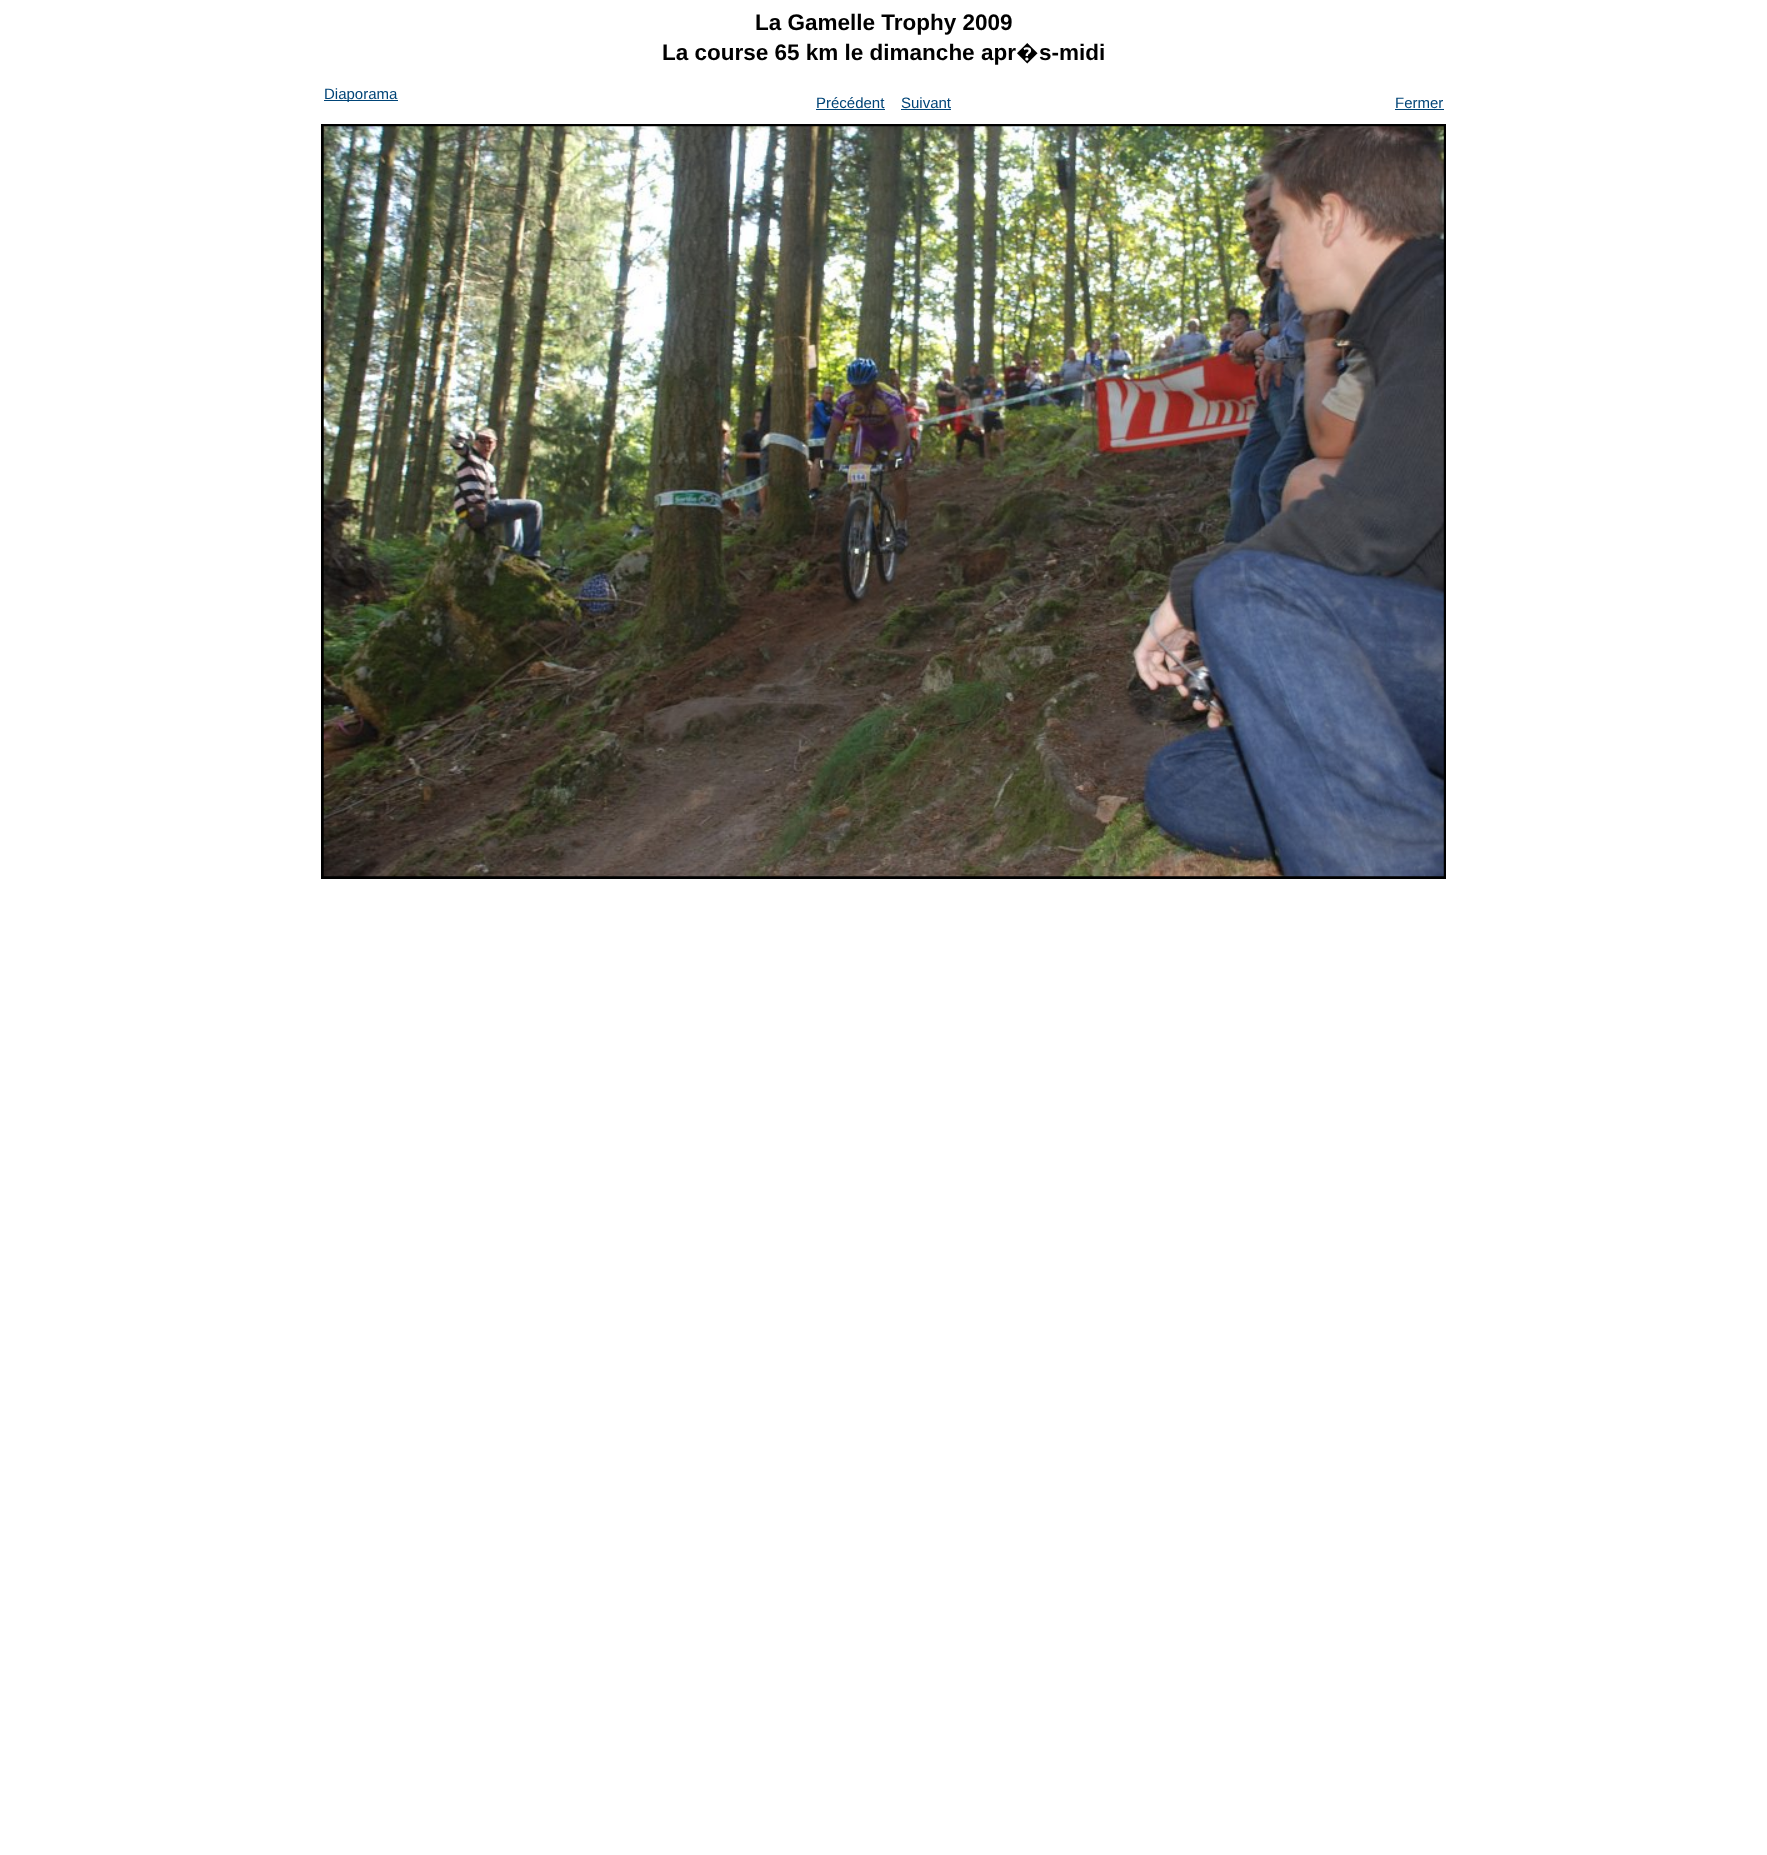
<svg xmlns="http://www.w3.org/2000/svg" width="1767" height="1855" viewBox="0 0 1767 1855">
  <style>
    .t1 { font: bold 22.5px Liberation Sans; fill: #000; }
    .t2 { font: bold 22.5px Noto Sans; fill: #000; }
    .t3 { font: 15px Liberation Sans; fill: #047; }
  </style>
  <rect width="100%" height="100%" fill="#fff"/>
  <text x="755" y="30" class="t1">La Gamelle Trophy 2009</text>
  <text x="662" y="60" class="t1">La course 65 km le dimanche apr</text>
  <text x="1016" y="60" class="t2">�</text>
  <text x="1039" y="60" class="t1">s-midi</text>
  <rect x="324" y="100" width="74" height="1" fill="#047"/>
  <text x="324" y="99" class="t3">Diaporama</text>
  <text x="816" y="108" class="t3">Précédent</text>
  <rect x="816" y="109" width="69" height="1" fill="#047"/>
  <text x="901" y="108" class="t3">Suivant</text>
  <rect x="901" y="109" width="50" height="1" fill="#047"/>
  <text x="1395" y="108" class="t3">Fermer</text>
  <rect x="1395" y="109" width="49" height="1" fill="#047"/>
  <rect x="322.5" y="125.5" width="1122" height="752" fill="none" stroke="#000" stroke-width="3"/>
  <image x="323" y="126" width="1121" height="751" href="images/1.png"/>
</svg>
